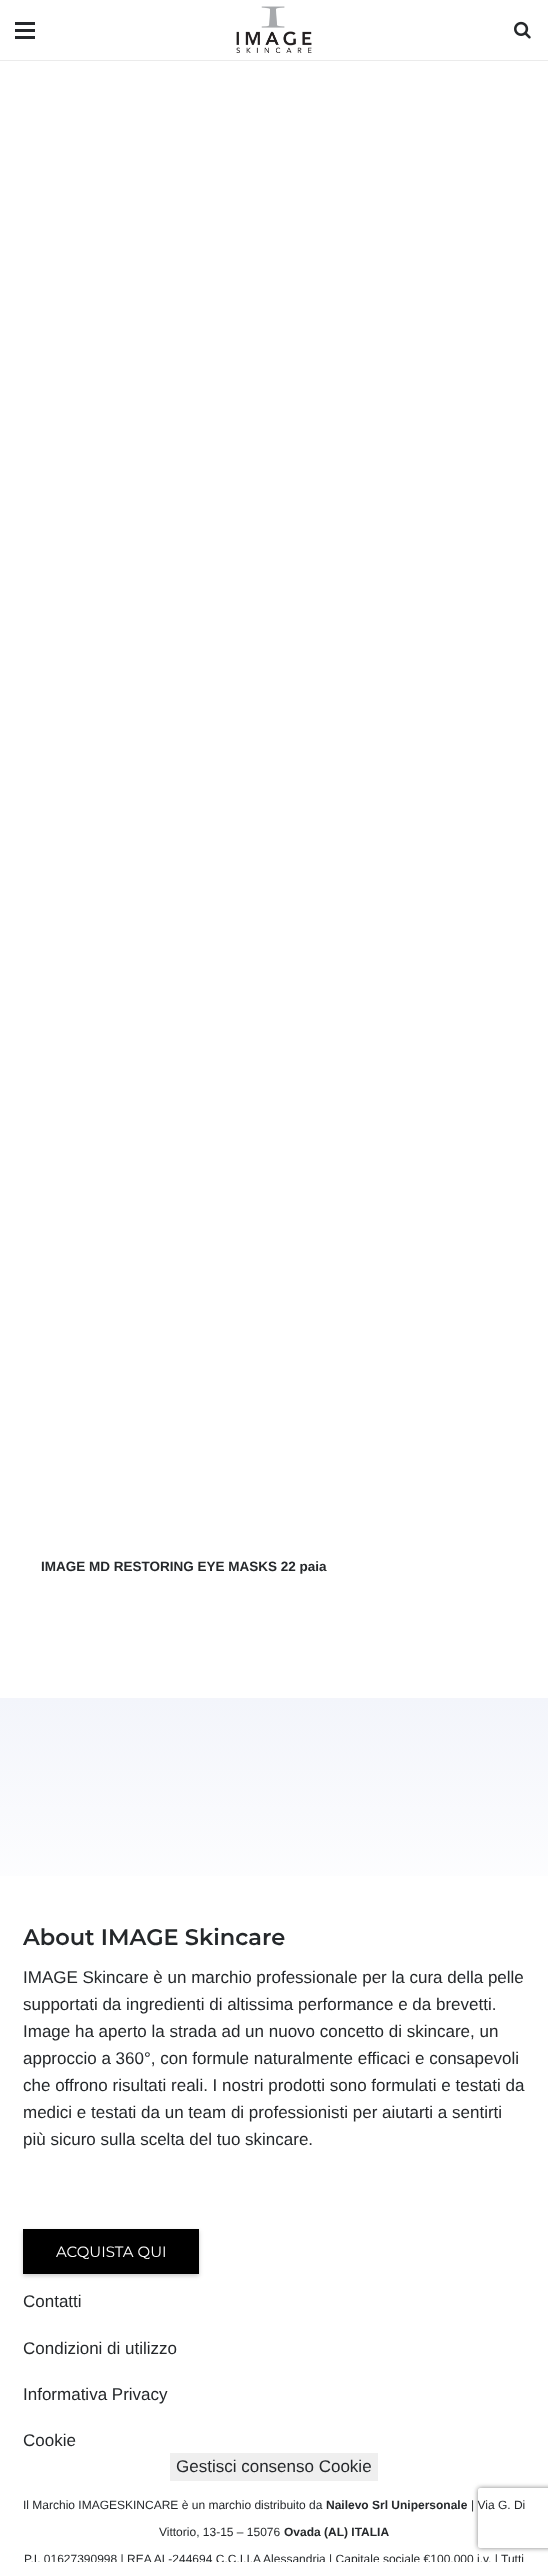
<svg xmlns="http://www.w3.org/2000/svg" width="548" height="2562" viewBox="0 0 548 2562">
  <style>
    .t1 { font: bold 13.5px Liberation Sans; fill: #25282b; }
    .t2 { font: 600 22.5px Montserrat; fill: #25282b; }
    .t3 { font: 17px Liberation Sans; fill: #25282b; }
    .t4 { font: 15px Montserrat; fill: #fff; }
    .t5 { font: 12px Liberation Sans; fill: #25282b; }
    .t6 { font: bold 12px Liberation Sans; fill: #25282b; }
  </style>
  <defs>
    <linearGradient id="g1" gradientUnits="userSpaceOnUse" x1="274" y1="1698" x2="274" y2="1923"><stop offset="0" stop-color="#f3f5fb"/><stop offset="1" stop-color="#fff"/></linearGradient>
    <clipPath id="clip1"><path d="M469 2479H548V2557H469ZM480 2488H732C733 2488 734 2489 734 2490V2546C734 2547 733 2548 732 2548H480C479 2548 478 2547 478 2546V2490C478 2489 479 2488 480 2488Z" clip-rule="evenodd"/></clipPath>
  </defs>
  <rect width="100%" height="100%" fill="#fff"/>
  <rect x="0" y="60" width="548" height="1" fill="#ebebeb"/>
  <rect x="15" y="29" width="20" height="3" fill="#25282b"/>
  <rect x="15" y="22" width="20" height="3" fill="#25282b"/>
  <rect x="15" y="36" width="20" height="3" fill="#25282b"/>
  <image x="236" y="6" width="76" height="47" href="images/1.png"/>
  <image x="514" y="21" width="17" height="18" href="images/2.png"/>
  <text x="41" y="1571" class="t1">IMAGE MD RESTORING EYE MASKS 22 paia</text>
  <rect x="0" y="1698" width="548" height="178" fill="url(#g1)"/>
  <text x="23" y="1945" class="t2">About IMAGE Skincare</text>
  <text x="23" y="1983" class="t3">IMAGE Skincare è un marchio professionale per la cura della pelle</text>
  <text x="23" y="2010" class="t3">supportati da ingredienti di altissima performance e da brevetti.</text>
  <text x="23" y="2037" class="t3">Image ha aperto la strada ad un nuovo concetto di skincare, un</text>
  <text x="23" y="2064" class="t3">approccio a 360°, con formule naturalmente efficaci e consapevoli</text>
  <text x="23" y="2091" class="t3">che offrono risultati reali. I nostri prodotti sono formulati e testati da</text>
  <text x="23" y="2118" class="t3">medici e testati da un team di professionisti per aiutarti a sentirti</text>
  <text x="23" y="2145" class="t3">più sicuro sulla scelta del tuo skincare.</text>
  <rect x="23" y="2231" width="176" height="45" fill="#00000033" filter="blur(2px)"/>
  <rect x="23" y="2229" width="176" height="45" fill="#000"/>
  <text x="56" y="2257" class="t4">ACQUISTA QUI</text>
  <text x="23" y="2307" class="t3">Contatti</text>
  <text x="23" y="2354" class="t3">Condizioni di utilizzo</text>
  <text x="23" y="2400" class="t3">Informativa Privacy</text>
  <text x="23" y="2446" class="t3">Cookie</text>
  <rect x="170" y="2453" width="208" height="28" fill="#efefef"/>
  <text x="176" y="2472" class="t3">Gestisci consenso Cookie</text>
  <text x="23" y="2509" class="t5">Il Marchio IMAGESKINCARE è un marchio distribuito da</text>
  <text x="326" y="2509" class="t6">Nailevo Srl Unipersonale</text>
  <text x="471" y="2509" class="t5">| Via G. Di</text>
  <text x="159" y="2536" class="t5">Vittorio, 13-15 – 15076</text>
  <text x="284" y="2536" class="t6">Ovada (AL) ITALIA</text>
  <text x="24" y="2563" class="t5">P.I. 01627390998 | REA AL-244694 C.C.I.I.A Alessandria | Capitale sociale €100.000 i.v. | Tutti</text>
  <g clip-path="url(#clip1)">
    <rect x="478" y="2488" width="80" height="60" rx="2" fill="#808080" filter="blur(2.5px)"/>
  </g>
</svg>
